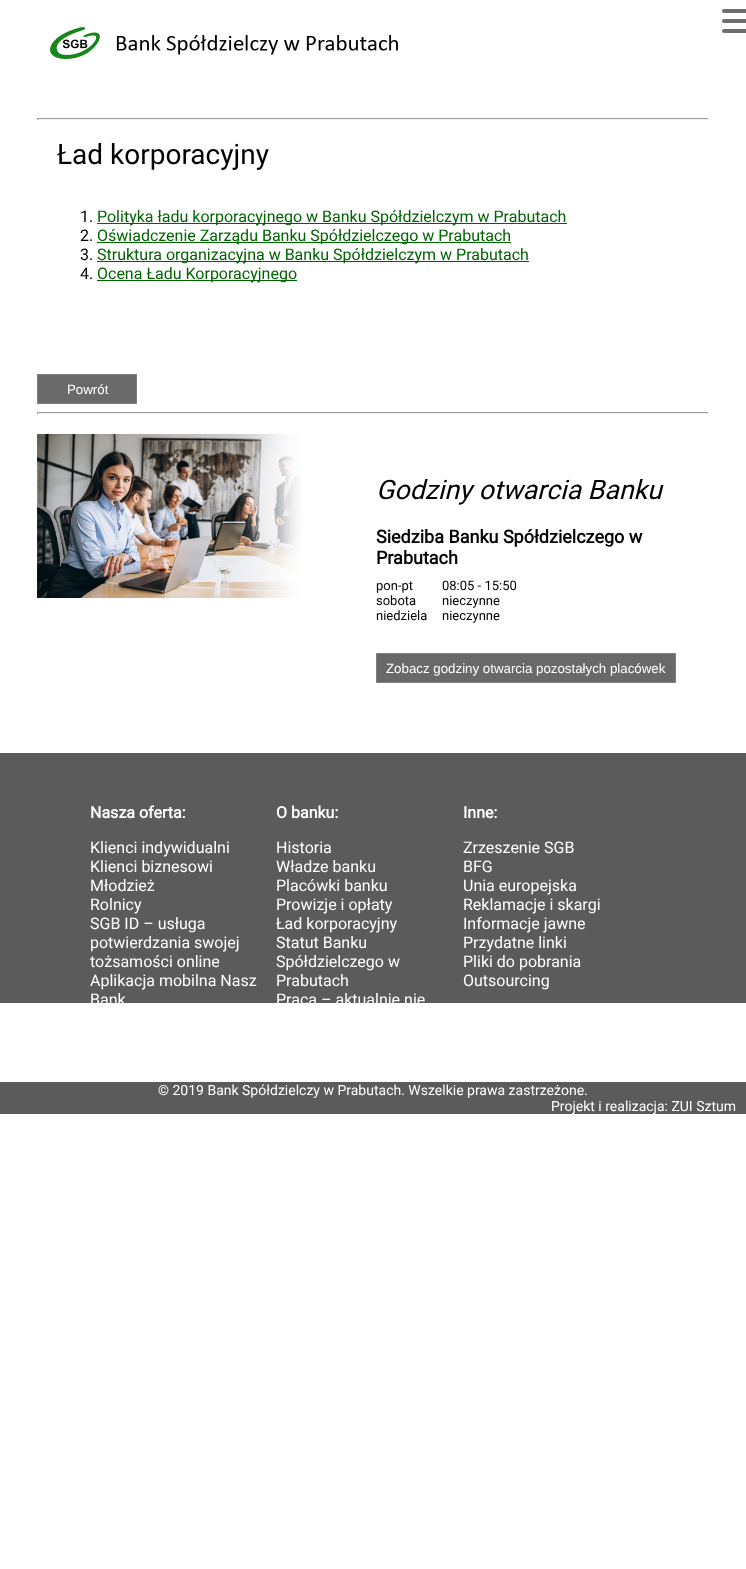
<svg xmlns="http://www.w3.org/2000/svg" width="746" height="1569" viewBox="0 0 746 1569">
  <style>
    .t1 { font: 28px Roboto; fill: #000; }
    .t2 { font: 16px Roboto; fill: #000; }
    .t3 { font: 16px Roboto; fill: #006400; }
    .t4 { font: 13.3px Liberation Sans; fill: #fff; }
    .t5 { font: italic 26.75px Roboto; fill: #000; }
    .t6 { font: bold 18px Roboto; fill: #000; }
    .t7 { font: 13px Roboto; fill: #000; }
    .t8 { font: bold 16px Roboto; fill: #fff; }
    .t9 { font: 16px Roboto; fill: #fff; }
    .t10 { font: 14px Roboto; fill: #fff; }
  </style>
  <rect width="100%" height="100%" fill="#fff"/>
  <rect x="722" y="9" width="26" height="4" rx="2" fill="#6d6d6d"/>
  <rect x="722" y="19" width="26" height="4" rx="2" fill="#6d6d6d"/>
  <rect x="722" y="29" width="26" height="4" rx="2" fill="#6d6d6d"/>
  <image x="50" y="27" width="348" height="32" href="images/1.png"/>
  <rect x="37" y="118" width="672" height="1" fill="#9f9f9f"/>
  <rect x="708" y="118" width="1" height="2" fill="#eee"/>
  <rect x="37" y="119" width="672" height="1" fill="#eee"/>
  <rect x="37" y="118" width="1" height="2" fill="#9f9f9f"/>
  <text x="57" y="164" class="t1">Ład korporacyjny</text>
  <text x="80" y="222" class="t2">1.</text>
  <rect x="97" y="223" width="470" height="1" fill="#006400"/>
  <text x="97" y="222" class="t3">Polityka ładu korporacyjnego w Banku Spółdzielczym w Prabutach</text>
  <text x="80" y="241" class="t2">2.</text>
  <rect x="97" y="242" width="414" height="1" fill="#006400"/>
  <text x="97" y="241" class="t3">Oświadczenie Zarządu Banku Spółdzielczego w Prabutach</text>
  <text x="80" y="260" class="t2">3.</text>
  <rect x="97" y="261" width="432" height="1" fill="#006400"/>
  <text x="97" y="260" class="t3">Struktura organizacyjna w Banku Spółdzielczym w Prabutach</text>
  <text x="80" y="279" class="t2">4.</text>
  <rect x="97" y="280" width="200" height="1" fill="#006400"/>
  <text x="97" y="279" class="t3">Ocena Ładu Korporacyjnego</text>
  <rect x="37.5" y="374.5" width="99" height="29" fill="#696969" stroke="#808080"/>
  <text x="67" y="394" class="t4">Powrót</text>
  <rect x="37" y="412" width="672" height="1" fill="#9f9f9f"/>
  <rect x="708" y="412" width="1" height="2" fill="#eee"/>
  <rect x="37" y="413" width="672" height="1" fill="#eee"/>
  <rect x="37" y="412" width="1" height="2" fill="#9f9f9f"/>
  <image x="37" y="434" width="264" height="164" href="images/2.png"/>
  <text x="376" y="499" class="t5">Godziny otwarcia Banku</text>
  <text x="376" y="543" class="t6">Siedziba Banku Spółdzielczego w</text>
  <text x="376" y="564" class="t6">Prabutach</text>
  <text x="376" y="590" class="t7">pon-pt</text>
  <text x="376" y="605" class="t7">sobota</text>
  <text x="376" y="620" class="t7">niedziela</text>
  <text x="442" y="590" class="t7">08:05 - 15:50</text>
  <text x="442" y="605" class="t7">nieczynne</text>
  <text x="442" y="620" class="t7">nieczynne</text>
  <rect x="376.5" y="653.5" width="299" height="29" fill="#696969" stroke="#808080"/>
  <text x="386" y="673" class="t4">Zobacz godziny otwarcia pozostałych placówek</text>
  <rect x="0" y="753" width="746" height="250" fill="#5b5b5b"/>
  <text x="90" y="818" class="t8">Nasza oferta:</text>
  <text x="90" y="853" class="t9">Klienci indywidualni</text>
  <text x="90" y="872" class="t9">Klienci biznesowi</text>
  <text x="90" y="891" class="t9">Młodzież</text>
  <text x="90" y="910" class="t9">Rolnicy</text>
  <text x="90" y="929" class="t9">SGB ID – usługa</text>
  <text x="90" y="948" class="t9">potwierdzania swojej</text>
  <text x="90" y="967" class="t9">tożsamości online</text>
  <text x="90" y="986" class="t9">Aplikacja mobilna Nasz</text>
  <text x="90" y="1005" class="t9">Bank</text>
  <text x="276" y="818" class="t8">O banku:</text>
  <text x="276" y="853" class="t9">Historia</text>
  <text x="276" y="872" class="t9">Władze banku</text>
  <text x="276" y="891" class="t9">Placówki banku</text>
  <text x="276" y="910" class="t9">Prowizje i opłaty</text>
  <text x="276" y="929" class="t9">Ład korporacyjny</text>
  <text x="276" y="948" class="t9">Statut Banku</text>
  <text x="276" y="967" class="t9">Spółdzielczego w</text>
  <text x="276" y="986" class="t9">Prabutach</text>
  <text x="276" y="1005" class="t9">Praca – aktualnie nie</text>
  <text x="463" y="818" class="t8">Inne:</text>
  <text x="463" y="853" class="t9">Zrzeszenie SGB</text>
  <text x="463" y="872" class="t9">BFG</text>
  <text x="463" y="891" class="t9">Unia europejska</text>
  <text x="463" y="910" class="t9">Reklamacje i skargi</text>
  <text x="463" y="929" class="t9">Informacje jawne</text>
  <text x="463" y="948" class="t9">Przydatne linki</text>
  <text x="463" y="967" class="t9">Pliki do pobrania</text>
  <text x="463" y="986" class="t9">Outsourcing</text>
  <rect x="0" y="1082" width="746" height="32" fill="#5b5b5b"/>
  <text x="158" y="1095" class="t10">© 2019 Bank Spółdzielczy w Prabutach. Wszelkie prawa zastrzeżone.</text>
  <text x="551" y="1111" class="t10">Projekt i realizacja: ZUI Sztum</text>
</svg>
